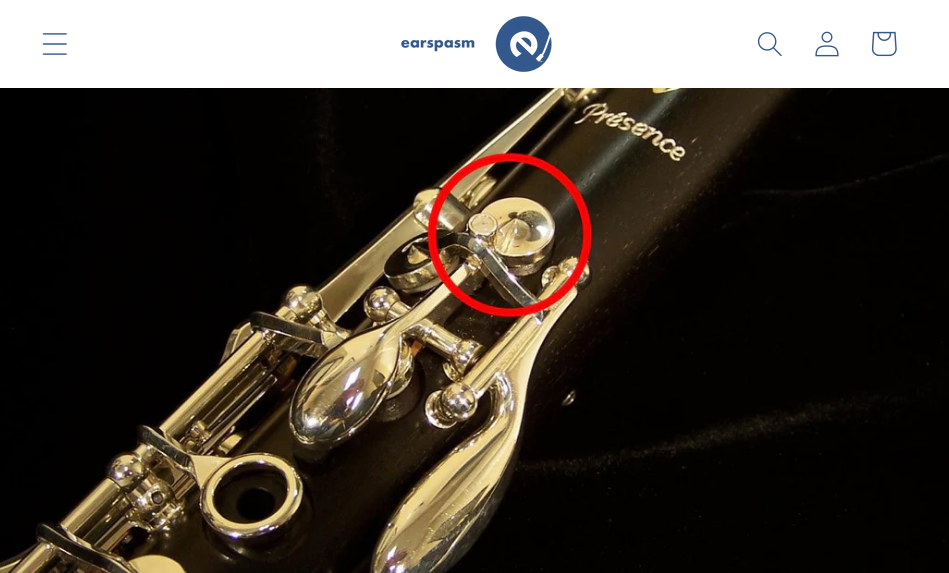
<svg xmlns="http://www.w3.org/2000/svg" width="949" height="573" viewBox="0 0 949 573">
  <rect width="100%" height="100%" fill="#fff"/>
  <image x="42" y="33" width="25" height="22" href="images/1.png"/>
  <image x="401" y="16" width="151" height="56" href="images/2.png"/>
  <image x="757" y="32" width="25" height="25" href="images/3.png"/>
  <image x="815" y="31" width="24" height="26" href="images/4.png"/>
  <image x="871" y="31" width="26" height="26" href="images/5.png"/>
  <image x="0" y="88" width="949" height="485" href="images/6.png"/>
</svg>
